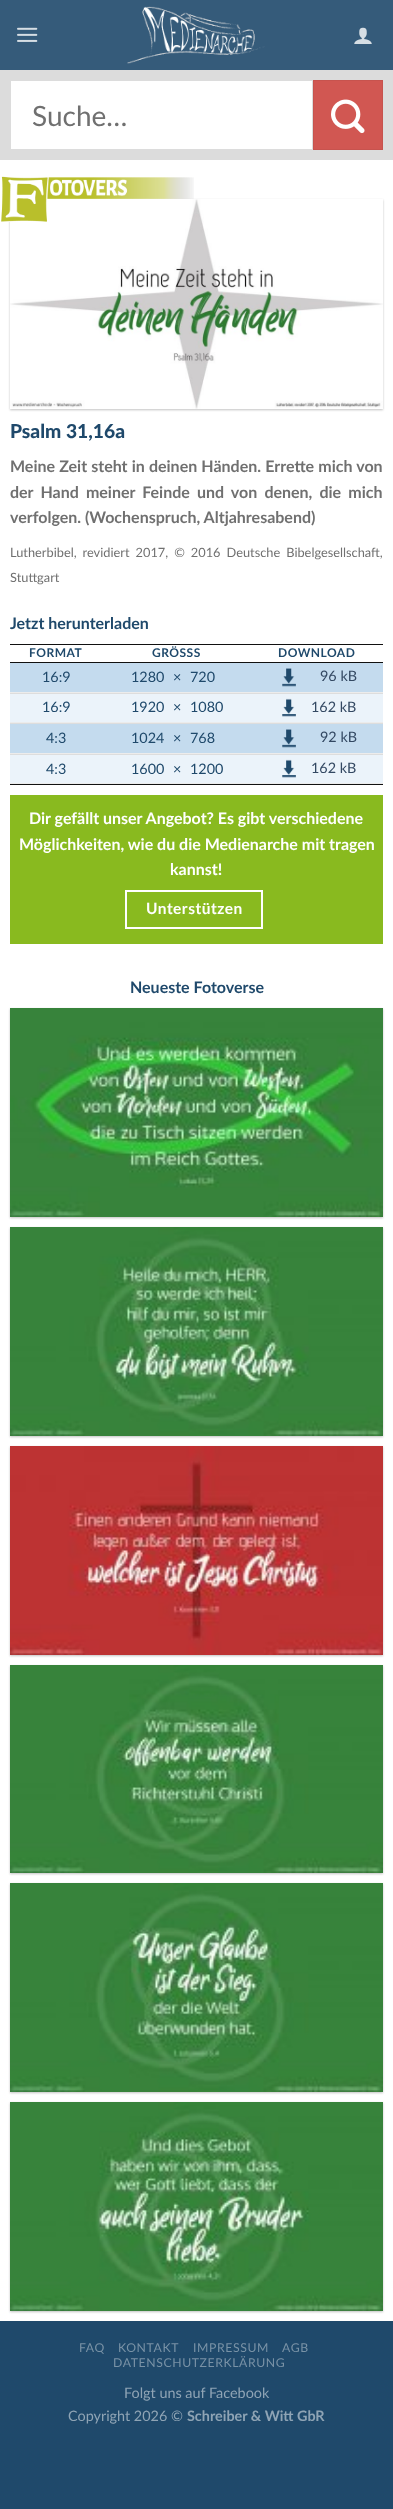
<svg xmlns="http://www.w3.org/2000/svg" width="393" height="2509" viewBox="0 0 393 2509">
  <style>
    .t1 { font: 28px Lato; fill: #707070; }
    .t2 { font: 900 19.25px Lato; fill: #1f496b; }
    .t3 { font: bold 16px Lato; fill: #707070; }
    .t4 { font: 12.8px Lato; fill: #707070; }
    .t5 { font: bold 16px Lato; fill: #1f496b; }
    .t6 { font: bold 12px Lato; letter-spacing: 0.5px; fill: #1f496b; }
    .t7 { font: 14.4px Lato; fill: #1f496b; }
    .t8 { font: 14.4px Lato; fill: #334862; }
    .t9 { font: bold 16px Lato; fill: #fff; }
    .t10 { font: bold 15.5px Lato; letter-spacing: 0.5px; fill: #fff; }
    .t11 { font: 12.25px Lato; letter-spacing: 0.6px; fill: #7992a6; }
    .t12 { font: 14.4px Lato; fill: #8fa4b5; }
    .t13 { font: bold 14.4px Lato; fill: #8fa4b5; }
  </style>
  <rect width="100%" height="100%" fill="#1f496b"/>
  <rect x="0" y="160" width="393" height="2161" fill="#fff"/>
  <rect x="0" y="0" width="393" height="70" fill="#355b7a"/>
  <image x="17" y="27" width="21" height="15" href="images/1.png"/>
  <image x="127" y="6" width="138" height="58" href="images/2.png"/>
  <image x="354" y="27" width="18" height="17" href="images/3.png"/>
  <rect x="0" y="70" width="393" height="90" fill="#dcdcdc"/>
  <rect x="11" y="81" width="301" height="68" fill="#fff"/>
  <text x="32" y="126" class="t1">Suche…</text>
  <rect x="313.5" y="80.5" width="69" height="69" fill="#d15752" stroke="#c7534e"/>
  <image x="331" y="99" width="34" height="35" href="images/4.png"/>
  <rect x="10" y="200" width="373" height="210" fill="#0000003d" filter="blur(1px)"/>
  <image x="10" y="199" width="373" height="210" href="images/6.png"/>
  <image x="1" y="176" width="193" height="46" href="images/5.png"/>
  <text x="10" y="438" class="t2">Psalm 31,16a</text>
  <text x="10" y="472" word-spacing="0.25" class="t3">Meine Zeit steht in deinen Händen. Errette mich von</text>
  <text x="10" y="498" word-spacing="3.25" class="t3">der Hand meiner Feinde und von denen, die mich</text>
  <text x="10" y="523" class="t3">verfolgen. (Wochenspruch, Altjahresabend)</text>
  <text x="10" y="557" word-spacing="2.75" class="t4">Lutherbibel, revidiert 2017, © 2016 Deutsche Bibelgesellschaft,</text>
  <text x="10" y="582" class="t4">Stuttgart</text>
  <text x="10" y="629" class="t5">Jetzt herunterladen</text>
  <rect x="10" y="784" width="373" height="1" fill="#111"/>
  <rect x="10" y="644" width="373" height="1" fill="#111"/>
  <rect x="10" y="662" width="373" height="1" fill="#111"/>
  <text x="29" y="657" class="t6">FORMAT</text>
  <text x="152" y="657" class="t6">GRÖSSS</text>
  <text x="278" y="657" class="t6">DOWNLOAD</text>
  <rect x="10" y="663" width="373" height="29" fill="#c4dbee"/>
  <rect x="10" y="692" width="373" height="1" fill="#ececec"/>
  <text x="42" y="682" class="t7">16:9</text>
  <text x="131" y="682" class="t7">1280</text>
  <text x="173" y="682" class="t7">×</text>
  <text x="190" y="682" class="t7">720</text>
  <image x="282" y="668" width="14" height="19" href="images/7.png"/>
  <text x="320" y="681" class="t8">96 kB</text>
  <rect x="10" y="694" width="373" height="28" fill="#ebf3fa"/>
  <rect x="10" y="693" width="373" height="1" fill="#ddd"/>
  <rect x="10" y="722" width="373" height="1" fill="#ececec"/>
  <text x="42" y="712" class="t7">16:9</text>
  <text x="131" y="712" class="t7">1920</text>
  <text x="173" y="712" class="t7">×</text>
  <text x="190" y="712" class="t7">1080</text>
  <image x="282" y="698" width="14" height="19" href="images/8.png"/>
  <text x="311" y="712" class="t8">162 kB</text>
  <rect x="10" y="724" width="373" height="29" fill="#c4dbee"/>
  <rect x="10" y="723" width="373" height="1" fill="#ddd"/>
  <rect x="10" y="753" width="373" height="1" fill="#ececec"/>
  <text x="46" y="743" class="t7">4:3</text>
  <text x="131" y="743" class="t7">1024</text>
  <text x="173" y="743" class="t7">×</text>
  <text x="190" y="743" class="t7">768</text>
  <image x="282" y="729" width="14" height="19" href="images/7.png"/>
  <text x="320" y="742" class="t8">92 kB</text>
  <rect x="10" y="755" width="373" height="28" fill="#ebf3fa"/>
  <rect x="10" y="754" width="373" height="1" fill="#ddd"/>
  <rect x="10" y="783" width="373" height="1" fill="#ececec"/>
  <text x="46" y="774" class="t7">4:3</text>
  <text x="131" y="774" class="t7">1600</text>
  <text x="173" y="774" class="t7">×</text>
  <text x="190" y="774" class="t7">1200</text>
  <image x="282" y="759" width="14" height="19" href="images/8.png"/>
  <text x="311" y="773" class="t8">162 kB</text>
  <rect x="10" y="795" width="373" height="149" fill="#89ba1f"/>
  <text x="29" y="824" class="t9">Dir gefällt unser Angebot? Es gibt verschiedene</text>
  <text x="19" y="850" class="t9">Möglichkeiten, wie du die Medienarche mit tragen</text>
  <text x="170" y="875" class="t9">kannst!</text>
  <rect x="126" y="891" width="136" height="37" fill="none" stroke="#fff" stroke-width="2"/>
  <text x="146" y="914" class="t10">Unterstützen</text>
  <text x="130" y="993" class="t5">Neueste Fotoverse</text>
  <rect x="10" y="1009" width="373" height="209" fill="#0000003d" filter="blur(1px)"/>
  <image x="10" y="1008" width="373" height="209" href="images/9.png"/>
  <rect x="10" y="1228" width="373" height="209" fill="#0000003d" filter="blur(1px)"/>
  <image x="10" y="1227" width="373" height="209" href="images/10.png"/>
  <rect x="10" y="1447" width="373" height="209" fill="#0000003d" filter="blur(1px)"/>
  <image x="10" y="1446" width="373" height="209" href="images/11.png"/>
  <rect x="10" y="1666" width="373" height="208" fill="#0000003d" filter="blur(1px)"/>
  <image x="10" y="1665" width="373" height="208" href="images/12.png"/>
  <rect x="10" y="1884" width="373" height="209" fill="#0000003d" filter="blur(1px)"/>
  <image x="10" y="1883" width="373" height="209" href="images/13.png"/>
  <rect x="10" y="2103" width="373" height="209" fill="#0000003d" filter="blur(1px)"/>
  <image x="10" y="2102" width="373" height="209" href="images/14.png"/>
  <text x="79" y="2352" class="t11">FAQ</text>
  <text x="118" y="2352" class="t11">KONTAKT</text>
  <text x="193" y="2352" class="t11">IMPRESSUM</text>
  <text x="282" y="2352" class="t11">AGB</text>
  <text x="113" y="2367" class="t11">DATENSCHUTZERKLÄRUNG</text>
  <text x="124" y="2398" class="t12">Folgt uns auf Facebook</text>
  <text x="68" y="2421" class="t12">Copyright 2026 ©</text>
  <text x="187" y="2421" class="t13">Schreiber &amp; Witt GbR</text>
</svg>
